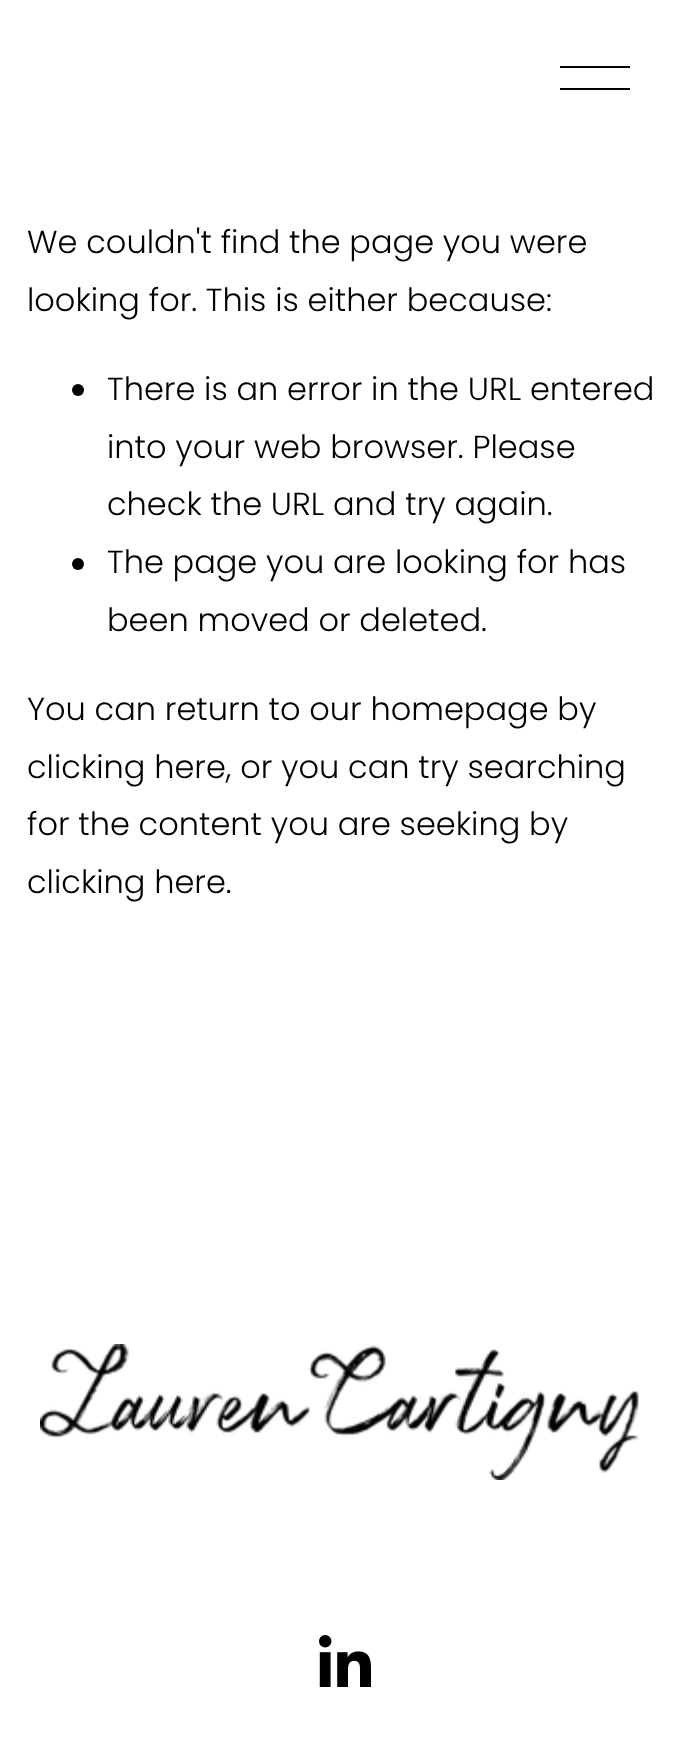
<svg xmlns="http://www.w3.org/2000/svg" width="682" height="1755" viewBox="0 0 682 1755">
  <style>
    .t1 { font: 300 32px Poppins; fill: #000; }
  </style>
  <rect width="100%" height="100%" fill="#fff"/>
  <rect x="560" y="66" width="70" height="2" fill="#000"/>
  <rect x="560" y="88" width="70" height="2" fill="#000"/>
  <text x="27" y="253" class="t1">We couldn't find the page you were</text>
  <text x="27" y="311" class="t1">looking for. This is either because:</text>
  <circle cx="78" cy="390" r="6" fill="#000"/>
  <text x="107" y="400" class="t1">There is an error in the URL entered</text>
  <text x="107" y="458" class="t1">into your web browser. Please</text>
  <text x="107" y="515" class="t1">check the URL and try again.</text>
  <circle cx="78" cy="564" r="6" fill="#000"/>
  <text x="107" y="573" class="t1">The page you are looking for has</text>
  <text x="107" y="631" class="t1">been moved or deleted.</text>
  <text x="27" y="720" class="t1">You can return to our homepage by</text>
  <text x="27" y="778" class="t1">clicking here, or you can try searching</text>
  <text x="27" y="835" class="t1">for the content you are seeking by</text>
  <text x="27" y="893" class="t1">clicking here.</text>
  <image x="40" y="1344" width="599" height="136" href="images/1.png"/>
  <image x="319" y="1635" width="52" height="52" href="images/2.png"/>
</svg>
